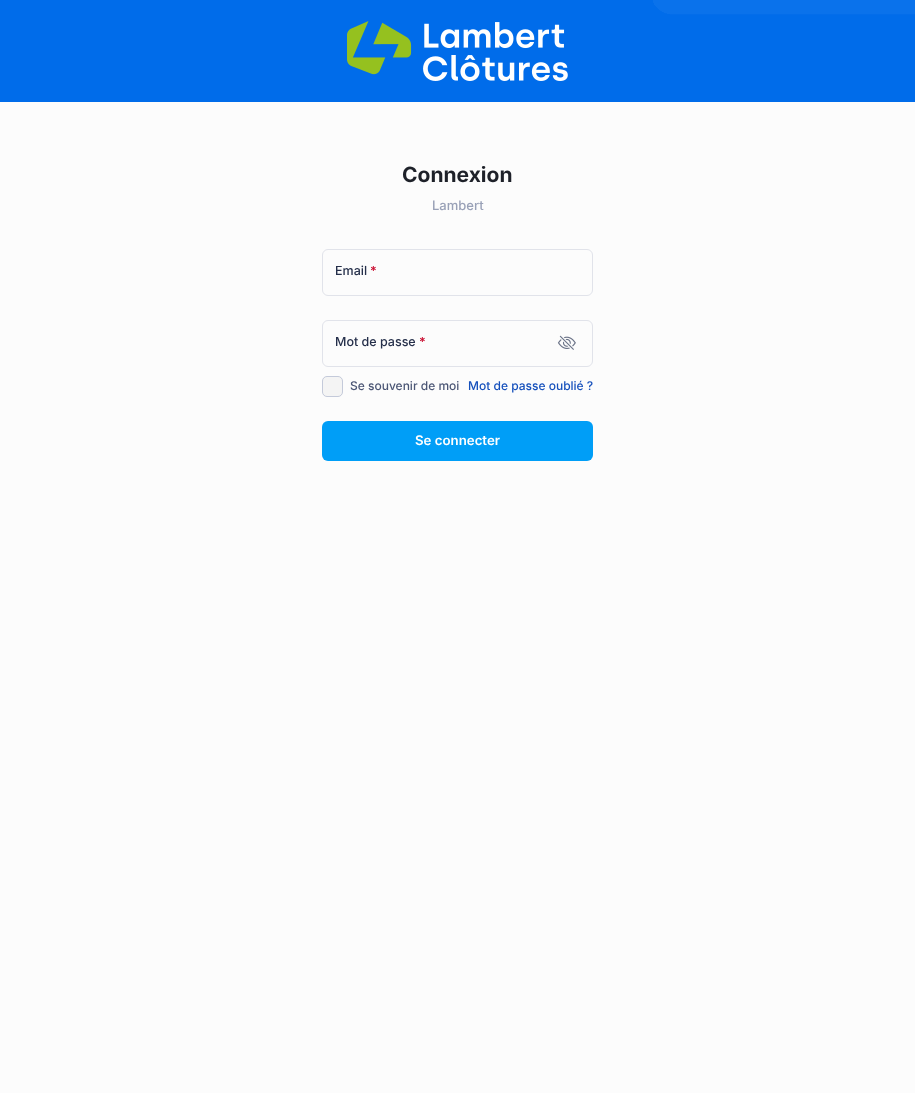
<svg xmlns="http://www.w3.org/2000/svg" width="915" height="1093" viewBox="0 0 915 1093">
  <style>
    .t1 { font: bold 21px Inter; fill: #1e2129; }
    .t2 { font: 500 13px Inter; fill: #99a1b7; }
    .t3 { font: 500 12.5px Inter; fill: #252f4a; }
    .t4 { font: 600 12.5px Inter; fill: #ca1133; }
    .t5 { font: 500 12px Inter; fill: #4b5675; }
    .t6 { font: 500 12px Inter; fill: #1550bc; }
    .t7 { font: 600 13.25px Inter; fill: #fff; }
  </style>
  <rect width="100%" height="100%" fill="#fcfcfc"/>
  <image x="0" y="0" width="915" height="102" href="images/1.png"/>
  <image x="347" y="21" width="221" height="60" href="images/2.png"/>
  <text x="402" y="182" class="t1">Connexion</text>
  <text x="432" y="210" class="t2">Lambert</text>
  <rect x="322.5" y="249.5" width="270" height="46" rx="5.5" fill="none" stroke="#e1e3ea"/>
  <text x="335" y="275" class="t3">Email</text>
  <text x="370" y="275" class="t4">*</text>
  <rect x="322.5" y="320.5" width="270" height="46" rx="5.5" fill="none" stroke="#e1e3ea"/>
  <text x="335" y="346" class="t3">Mot de passe</text>
  <text x="419" y="346" class="t4">*</text>
  <image x="557" y="335" width="19" height="15" href="images/3.png"/>
  <rect x="322.5" y="376.5" width="20" height="20" rx="4.5" fill="#f4f4f4" stroke="#c4cada"/>
  <text x="350" y="390" class="t5">Se souvenir de moi</text>
  <text x="468" y="390" class="t6">Mot de passe oublié ?</text>
  <rect x="322" y="421" width="271" height="40" rx="6" fill="#009ef7"/>
  <text x="415" y="445" class="t7">Se connecter</text>
</svg>
